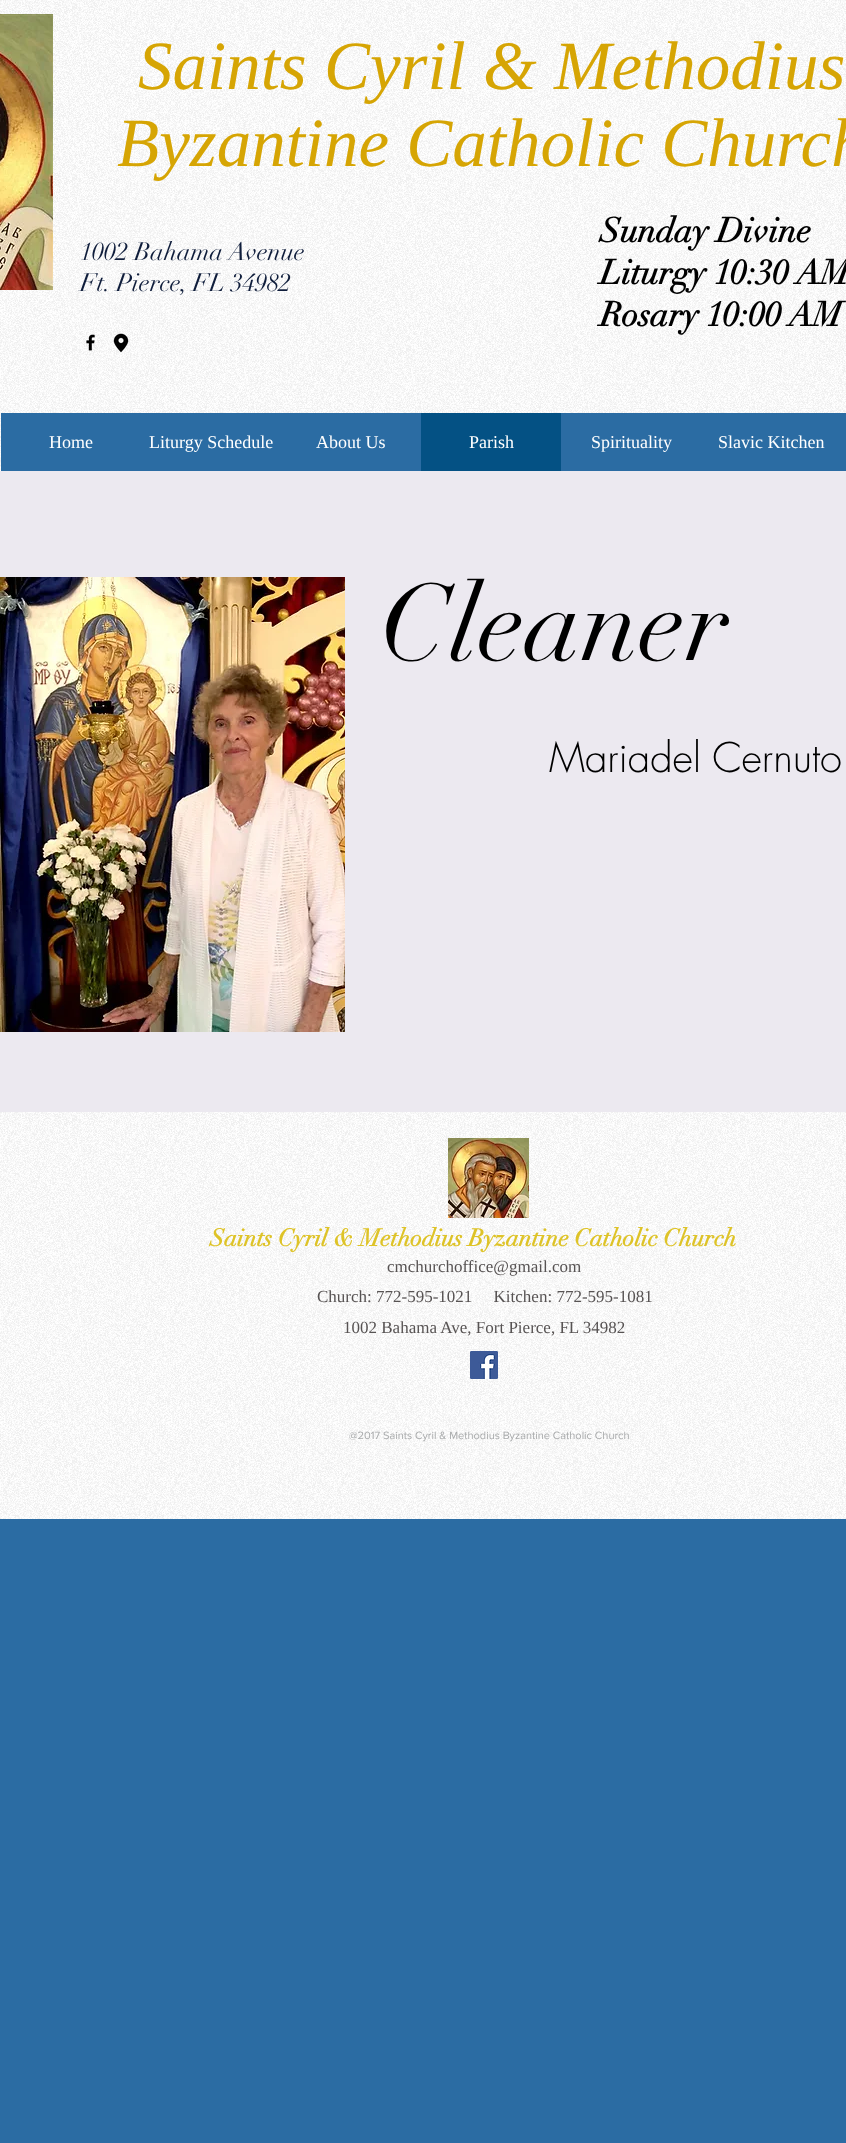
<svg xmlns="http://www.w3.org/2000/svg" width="846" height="2143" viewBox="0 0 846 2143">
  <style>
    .t1 { font: italic 69px Liberation Serif; fill: #d6a504; }
    .t2 { font: 25px didot; fill: #0f1d3b; }
    .t3 { font: bold 34px didot; fill: #000; }
    .t4 { font: 18px Liberation Serif; fill: #fff; }
    .t5 { font: 107px didot; fill: #000; }
    .t6 { font: 300 40px futura; fill: #000; }
    .t7 { font: bold 24px didot; fill: #dec328; }
    .t8 { font: 17px Liberation Serif; fill: #575353; }
    .t9 { font: 11px 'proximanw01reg'; fill: #a8aaab; }
  </style>
  <rect width="100%" height="100%" fill="#2b6ca3"/>
  <rect x="0" y="0" width="846" height="471" fill="#fff"/>
  <image x="0" y="0" width="846" height="471" href="images/1.png"/>
  <image x="0" y="14" width="53" height="276" href="images/2.png"/>
  <text x="138" y="89" class="t1">Saints Cyril &amp; Methodius</text>
  <text x="117" y="166" class="t1">Byzantine Catholic Church</text>
  <text x="80" y="260" class="t2">1002 Bahama Avenue</text>
  <text x="80" y="291" class="t2">Ft. Pierce, FL 34982</text>
  <text x="600" y="242" class="t3">Sunday Divine</text>
  <text x="600" y="284" class="t3">Liturgy 10:30 AM</text>
  <text x="600" y="326" class="t3">Rosary 10:00 AM</text>
  <image x="86" y="334" width="9" height="17" href="images/3.png"/>
  <image x="113" y="333" width="16" height="20" href="images/4.png"/>
  <rect x="1" y="413" width="420" height="58" fill="#2b6ca3"/>
  <text x="49" y="448" class="t4">Home</text>
  <text x="149" y="448" class="t4">Liturgy Schedule</text>
  <text x="316" y="448" class="t4">About Us</text>
  <rect x="421" y="413" width="140" height="58" fill="#045184"/>
  <text x="469" y="448" class="t4">Parish</text>
  <rect x="561" y="413" width="285" height="58" fill="#2b6ca3"/>
  <text x="591" y="448" class="t4">Spirituality</text>
  <text x="718" y="448" class="t4">Slavic Kitchen</text>
  <rect x="0" y="471" width="846" height="641" fill="#ece9f0"/>
  <image x="0" y="577" width="345" height="455" href="images/5.png"/>
  <text x="380" y="660" class="t5">Cleaner</text>
  <text x="549" y="772" class="t6">Mariadel Cernuto</text>
  <rect x="0" y="1112" width="846" height="407" fill="#fff"/>
  <image x="0" y="1112" width="846" height="407" href="images/6.png"/>
  <image x="448" y="1138" width="81" height="80" href="images/7.png"/>
  <text x="210" y="1246" class="t7">Saints Cyril &amp; Methodius Byzantine Catholic Church</text>
  <text x="387" y="1272" class="t8">cmchurchoffice@gmail.com</text>
  <text x="317" y="1302" class="t8" xml:space="preserve">Church: 772-595-1021     Kitchen: 772-595-1081</text>
  <text x="343" y="1333" class="t8">1002 Bahama Ave, Fort Pierce, FL 34982</text>
  <image x="470" y="1351" width="28" height="28" href="images/8.png"/>
  <text x="349" y="1439" class="t9">@2017 Saints Cyril &amp; Methodius Byzantine Catholic Church</text>
</svg>
